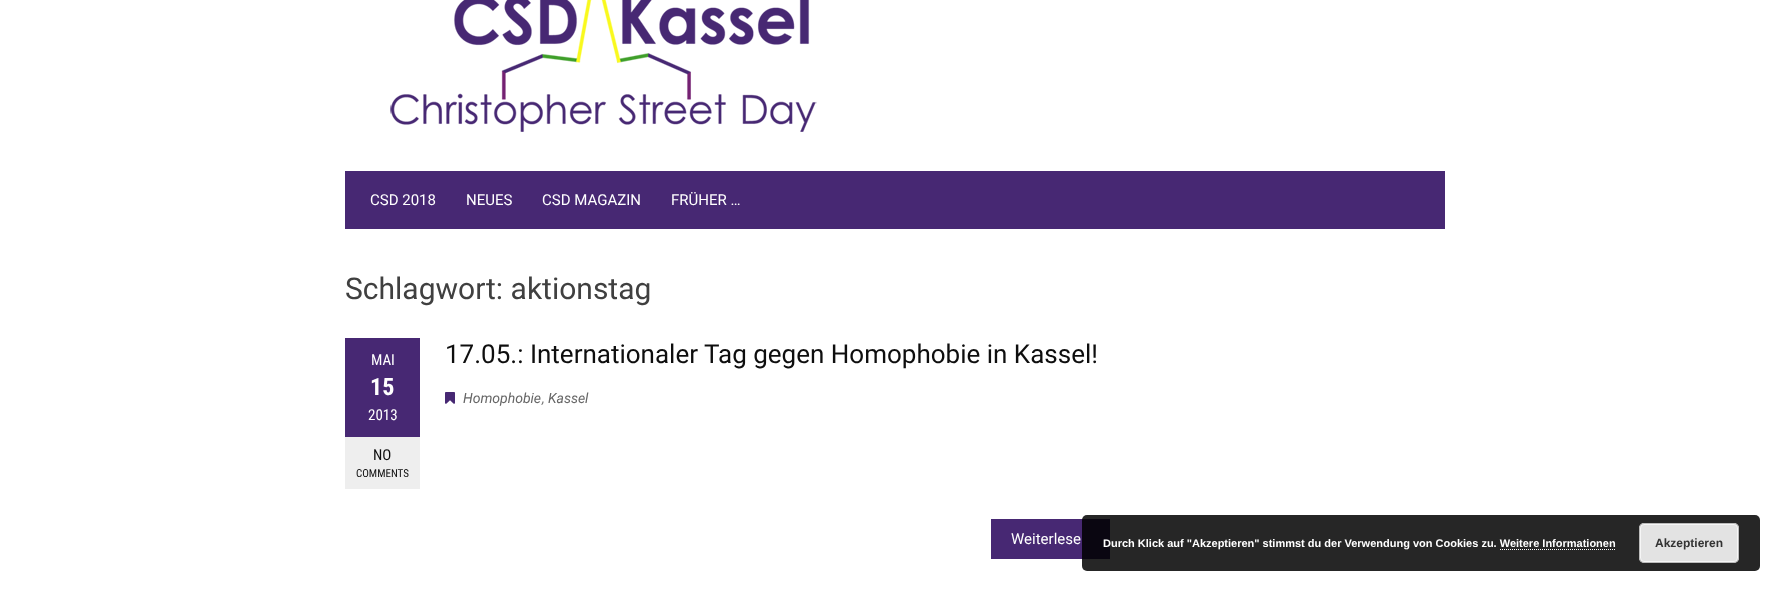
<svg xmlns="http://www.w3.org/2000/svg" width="1790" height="601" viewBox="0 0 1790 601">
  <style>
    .t1 { font: 15px Roboto; fill: #fff; }
    .t2 { font: 30px Roboto; fill: #404040; }
    .t3 { font: 15px Roboto Condensed; fill: #fff; }
    .t4 { font: bold 24px Roboto Condensed; fill: #fff; }
    .t5 { font: 15px Roboto Condensed; fill: #0e0e0e; }
    .t6 { font: 11px Roboto Condensed; fill: #0e0e0e; }
    .t7 { font: 26px Roboto; fill: #0e0e0e; }
    .t8 { font: italic 14px Roboto; fill: #666; }
    .t9 { font: italic 14px Roboto; fill: #777; }
    .t10 { font: bold 11px Liberation Sans; fill: #fff; }
    .t11 { font: bold 12px Liberation Sans; fill: #333; }
  </style>
  <rect width="100%" height="100%" fill="#fff"/>
  <image x="390" y="0" width="427" height="132" href="images/1.png"/>
  <rect x="345" y="171" width="1100" height="58" fill="#472873"/>
  <text x="370" y="205" class="t1">CSD 2018</text>
  <text x="466" y="205" class="t1">NEUES</text>
  <text x="542" y="205" class="t1">CSD MAGAZIN</text>
  <text x="671" y="205" class="t1">FRÜHER …</text>
  <text x="345" y="299" class="t2">Schlagwort: aktionstag</text>
  <rect x="345" y="338" width="75" height="99" fill="#472873"/>
  <text x="371" y="365" class="t3">MAI</text>
  <text x="370" y="395" class="t4">15</text>
  <text x="368" y="420" class="t3">2013</text>
  <rect x="345" y="437" width="75" height="52" fill="#eee"/>
  <text x="373" y="460" class="t5">NO</text>
  <text x="356" y="477" class="t6">COMMENTS</text>
  <text x="445" y="363" class="t7">17.05.: Internationaler Tag gegen Homophobie in Kassel!</text>
  <image x="445" y="392" width="10" height="12" href="images/2.png"/>
  <text x="463" y="403" class="t8">Homophobie</text>
  <text x="542" y="403" class="t9">,</text>
  <text x="548" y="403" class="t8">Kassel</text>
  <rect x="991" y="519" width="119" height="40" fill="#472873"/>
  <text x="1011" y="544" class="t1">Weiterlese</text>
  <rect x="1082" y="515" width="678" height="56" rx="5" fill="#000000d9"/>
  <text x="1103" y="547" class="t10">Durch Klick auf "Akzeptieren" stimmst du der Verwendung von Cookies zu. Weitere Informationen</text>
  <rect x="1639" y="523" width="100" height="40" rx="5" fill="#e3e3e3"/>
  <rect x="1640.5" y="524.5" width="97" height="37" rx="3.5" fill="none" stroke="#f6f6f6"/>
  <rect x="1639.5" y="523.5" width="99" height="39" rx="4.5" fill="none" stroke="#bbb"/>
  <text x="1655" y="547" class="t11">Akzeptieren</text>
  <path d="M1500 549.5H1616" fill="none" stroke="#fff" stroke-dasharray="1 1"/>
</svg>
